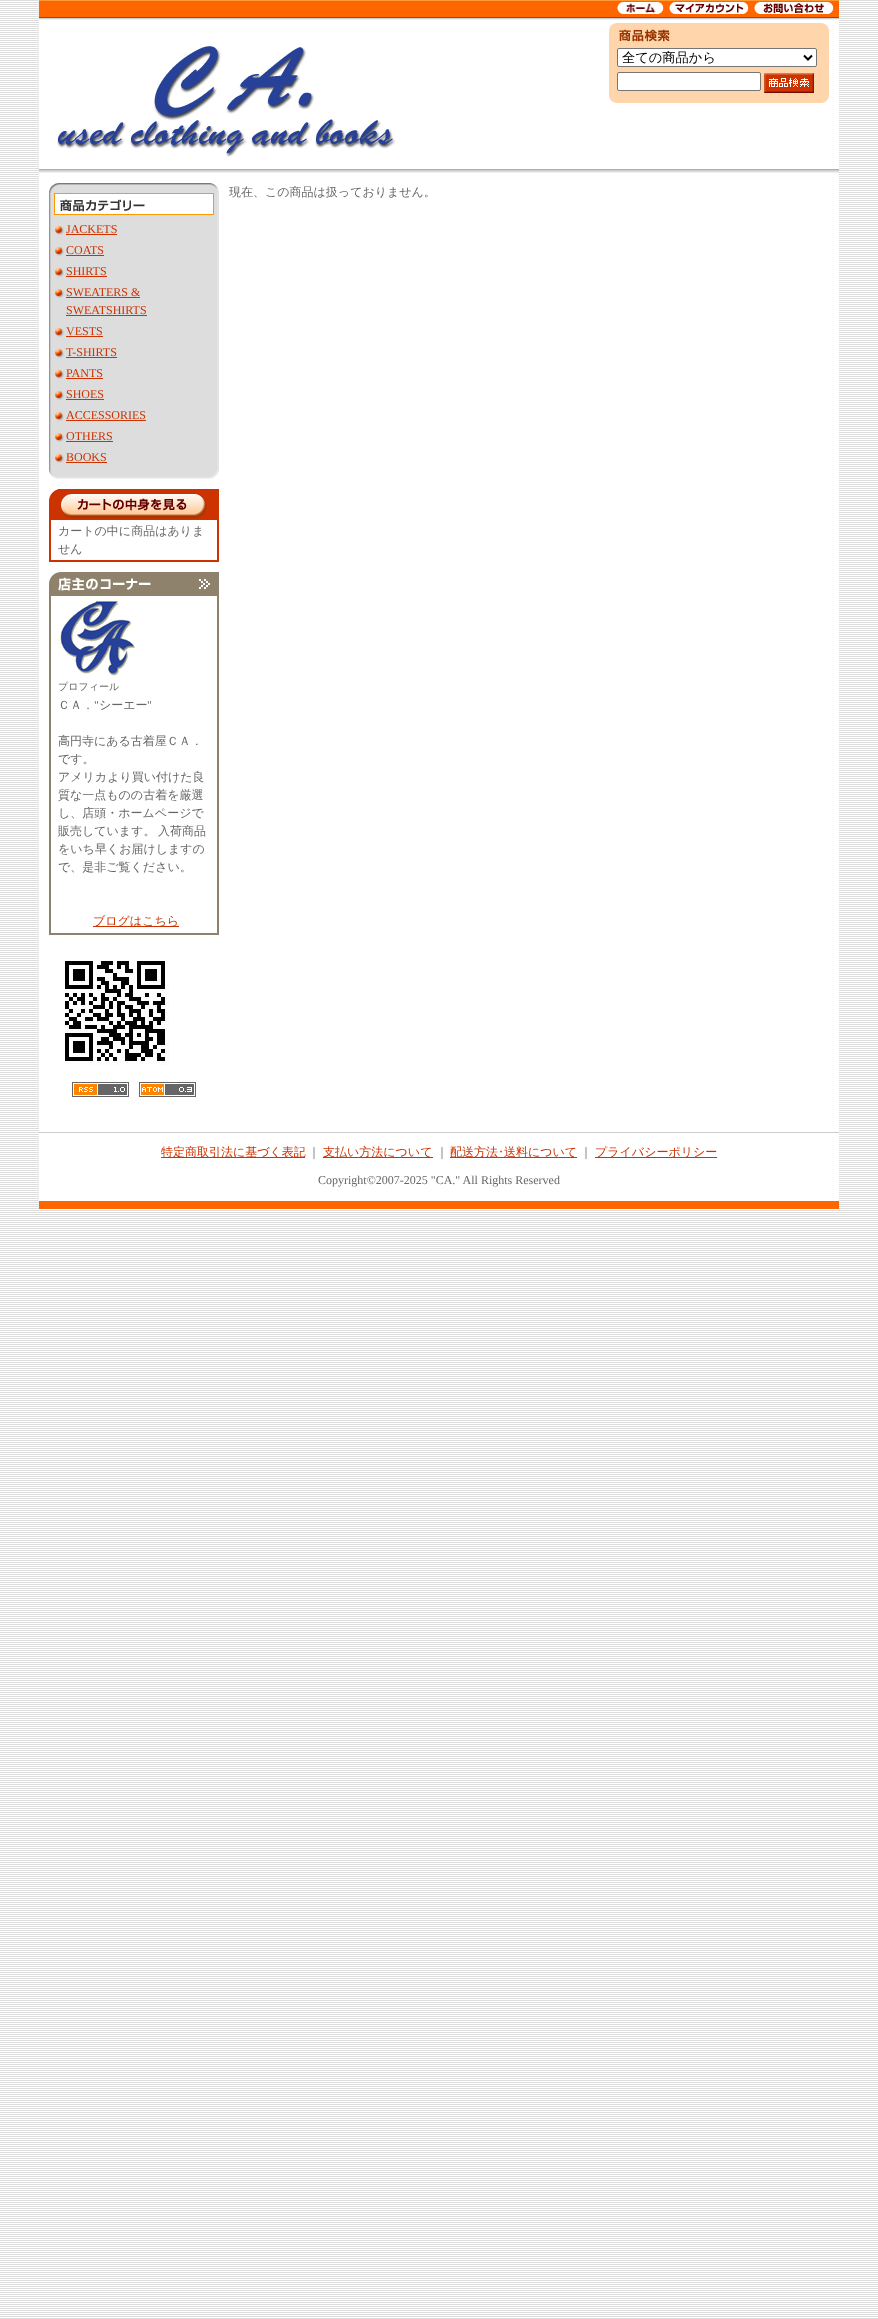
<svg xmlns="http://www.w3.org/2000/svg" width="878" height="2319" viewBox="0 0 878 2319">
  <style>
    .t1 { font: 500 13.25px WenQuanYi Zen Hei; fill: #000; }
    .t2 { font: 500 12px WenQuanYi Zen Hei; fill: #666; }
    .t3 { font: 12px Liberation Serif; fill: #c30; }
    .t4 { font: 500 10px WenQuanYi Zen Hei; fill: #666; }
    .t5 { font: 12px Liberation Serif; fill: #666; }
    .t6 { font: 500 12px WenQuanYi Zen Hei; fill: #c30; }
    .t7 { font: 12px IPAPGothic; fill: #c30; }
  </style>
  <rect width="100%" height="100%" fill="#ddd"/>
  <image x="0" y="1" width="878" height="2317" href="images/1.png"/>
  <rect x="39" y="20" width="800" height="1181" fill="#fff"/>
  <image x="39" y="0" width="800" height="20" href="images/2.png"/>
  <image x="617" y="2" width="47" height="12" href="images/3.png"/>
  <image x="669" y="2" width="80" height="12" href="images/4.png"/>
  <image x="754" y="2" width="80" height="12" href="images/5.png"/>
  <image x="39" y="169" width="800" height="4" href="images/6.png"/>
  <image x="57" y="46" width="338" height="111" href="images/7.png"/>
  <rect x="609" y="23" width="220" height="80" fill="#ffd5ac"/>
  <image x="609" y="96" width="220" height="7" href="images/8.png"/>
  <image x="609" y="23" width="220" height="19" href="images/9.png"/>
  <rect x="617.5" y="48.5" width="199" height="18" rx="1.5" fill="#fff" stroke="#767676"/>
  <path d="M804 55.5L808 59.5L812 55.5" fill="none" stroke="#000" stroke-width="2"/>
  <text x="622" y="62" class="t1">全ての商品から</text>
  <rect x="617.5" y="72.5" width="143" height="18" rx="1.5" fill="#fff" stroke="#767676"/>
  <image x="764" y="73" width="50" height="20" href="images/10.png"/>
  <text x="229" y="196" class="t2">現在、この商品は扱っておりません。</text>
  <image x="49" y="185" width="170" height="292" href="images/11.png"/>
  <image x="49" y="183" width="170" height="10" href="images/12.png"/>
  <rect x="54.5" y="193.5" width="159" height="21" fill="#fff" stroke="#f90"/>
  <image x="60" y="199" width="85" height="13" href="images/13.png"/>
  <image x="55" y="226" width="9" height="9" href="images/14.png"/>
  <text x="66" y="233" class="t3">JACKETS</text>
  <rect x="66" y="234" width="51" height="1" fill="#c30"/>
  <image x="55" y="247" width="9" height="9" href="images/14.png"/>
  <text x="66" y="254" class="t3">COATS</text>
  <rect x="66" y="255" width="38" height="1" fill="#c30"/>
  <image x="55" y="268" width="9" height="9" href="images/14.png"/>
  <text x="66" y="275" class="t3">SHIRTS</text>
  <rect x="66" y="276" width="41" height="1" fill="#c30"/>
  <image x="55" y="289" width="9" height="9" href="images/14.png"/>
  <text x="66" y="296" class="t3">SWEATERS &amp;</text>
  <rect x="66" y="297" width="74" height="1" fill="#c30"/>
  <text x="66" y="314" class="t3">SWEATSHIRTS</text>
  <rect x="66" y="315" width="81" height="1" fill="#c30"/>
  <image x="55" y="328" width="9" height="9" href="images/14.png"/>
  <text x="66" y="335" class="t3">VESTS</text>
  <rect x="66" y="336" width="37" height="1" fill="#c30"/>
  <image x="55" y="349" width="9" height="9" href="images/14.png"/>
  <text x="66" y="356" class="t3">T-SHIRTS</text>
  <rect x="66" y="357" width="51" height="1" fill="#c30"/>
  <image x="55" y="370" width="9" height="9" href="images/14.png"/>
  <text x="66" y="377" class="t3">PANTS</text>
  <rect x="66" y="378" width="37" height="1" fill="#c30"/>
  <image x="55" y="391" width="9" height="9" href="images/14.png"/>
  <text x="66" y="398" class="t3">SHOES</text>
  <rect x="66" y="399" width="38" height="1" fill="#c30"/>
  <image x="55" y="412" width="9" height="9" href="images/14.png"/>
  <text x="66" y="419" class="t3">ACCESSORIES</text>
  <rect x="66" y="420" width="80" height="1" fill="#c30"/>
  <image x="55" y="433" width="9" height="9" href="images/14.png"/>
  <text x="66" y="440" class="t3">OTHERS</text>
  <rect x="66" y="441" width="47" height="1" fill="#c30"/>
  <image x="55" y="454" width="9" height="9" href="images/14.png"/>
  <text x="66" y="461" class="t3">BOOKS</text>
  <rect x="66" y="462" width="41" height="1" fill="#c30"/>
  <image x="49" y="470" width="170" height="9" href="images/15.png"/>
  <rect x="49" y="560" width="170" height="2" fill="#c30"/>
  <rect x="49" y="489" width="170" height="31" fill="#c30"/>
  <image x="49" y="489" width="10" height="12" href="images/16.png"/>
  <image x="61" y="494" width="146" height="25" href="images/17.png"/>
  <rect x="217" y="520" width="2" height="40" fill="#c30"/>
  <rect x="49" y="520" width="2" height="40" fill="#c30"/>
  <text x="58" y="535" class="t2">カートの中に商品はありま</text>
  <text x="58" y="553" class="t2">せん</text>
  <rect x="49" y="933" width="170" height="2" fill="#8f826c"/>
  <rect x="49" y="572" width="170" height="24" fill="#8f826c"/>
  <image x="49" y="572" width="11" height="11" href="images/18.png"/>
  <image x="58" y="577" width="152" height="14" href="images/19.png"/>
  <rect x="217" y="596" width="2" height="337" fill="#8f826c"/>
  <rect x="49" y="596" width="2" height="337" fill="#8f826c"/>
  <image x="58" y="598" width="80" height="80" href="images/20.png"/>
  <text x="58" y="690" class="t4">プロフィール</text>
  <text x="58" y="709" class="t2">ＣＡ．</text>
  <text x="94" y="709" class="t5">"</text>
  <text x="99" y="709" class="t2">シーエー</text>
  <text x="147" y="709" class="t5">"</text>
  <text x="58" y="745" class="t2">高円寺にある古着屋ＣＡ．</text>
  <text x="58" y="763" class="t2">です。</text>
  <text x="58" y="781" class="t2">アメリカより買い付けた良</text>
  <text x="58" y="799" class="t2">質な一点ものの古着を厳選</text>
  <text x="58" y="817" class="t2">し、店頭・ホームページで</text>
  <text x="58" y="835" word-spacing="-1" class="t2">販売しています。 入荷商品</text>
  <text x="58" y="853" class="t2">をいち早くお届けしますの</text>
  <text x="58" y="871" class="t2">で、是非ご覧ください。</text>
  <rect x="93" y="926" width="86" height="1" fill="#c30"/>
  <text x="93" y="925" class="t6">ブログはこちら</text>
  <image x="65" y="961" width="104" height="104" href="images/21.png"/>
  <image x="72" y="1082" width="57" height="15" href="images/22.png"/>
  <image x="139" y="1082" width="57" height="15" href="images/23.png"/>
  <rect x="39" y="1201" width="800" height="8" fill="#f60"/>
  <rect x="39" y="1132" width="800" height="1" fill="#ccc"/>
  <rect x="161" y="1157" width="144" height="1" fill="#c30"/>
  <text x="161" y="1156" class="t6">特定商取引法に基づく表記</text>
  <text x="308" y="1156" class="t2">｜</text>
  <rect x="323" y="1157" width="110" height="1" fill="#c30"/>
  <text x="323" y="1156" class="t6">支払い方法について</text>
  <text x="436" y="1156" class="t2">｜</text>
  <rect x="450" y="1157" width="127" height="1" fill="#c30"/>
  <text x="450" y="1156" class="t6">配送方法</text>
  <text x="498" y="1156" class="t7">･</text>
  <text x="504" y="1156" class="t6">送料について</text>
  <text x="580" y="1156" class="t2">｜</text>
  <rect x="595" y="1157" width="122" height="1" fill="#c30"/>
  <text x="595" y="1156" class="t6">プライバシーポリシー</text>
  <text x="318" y="1184" class="t5">Copyright©2007-2025 "CA." All Rights Reserved</text>
</svg>
